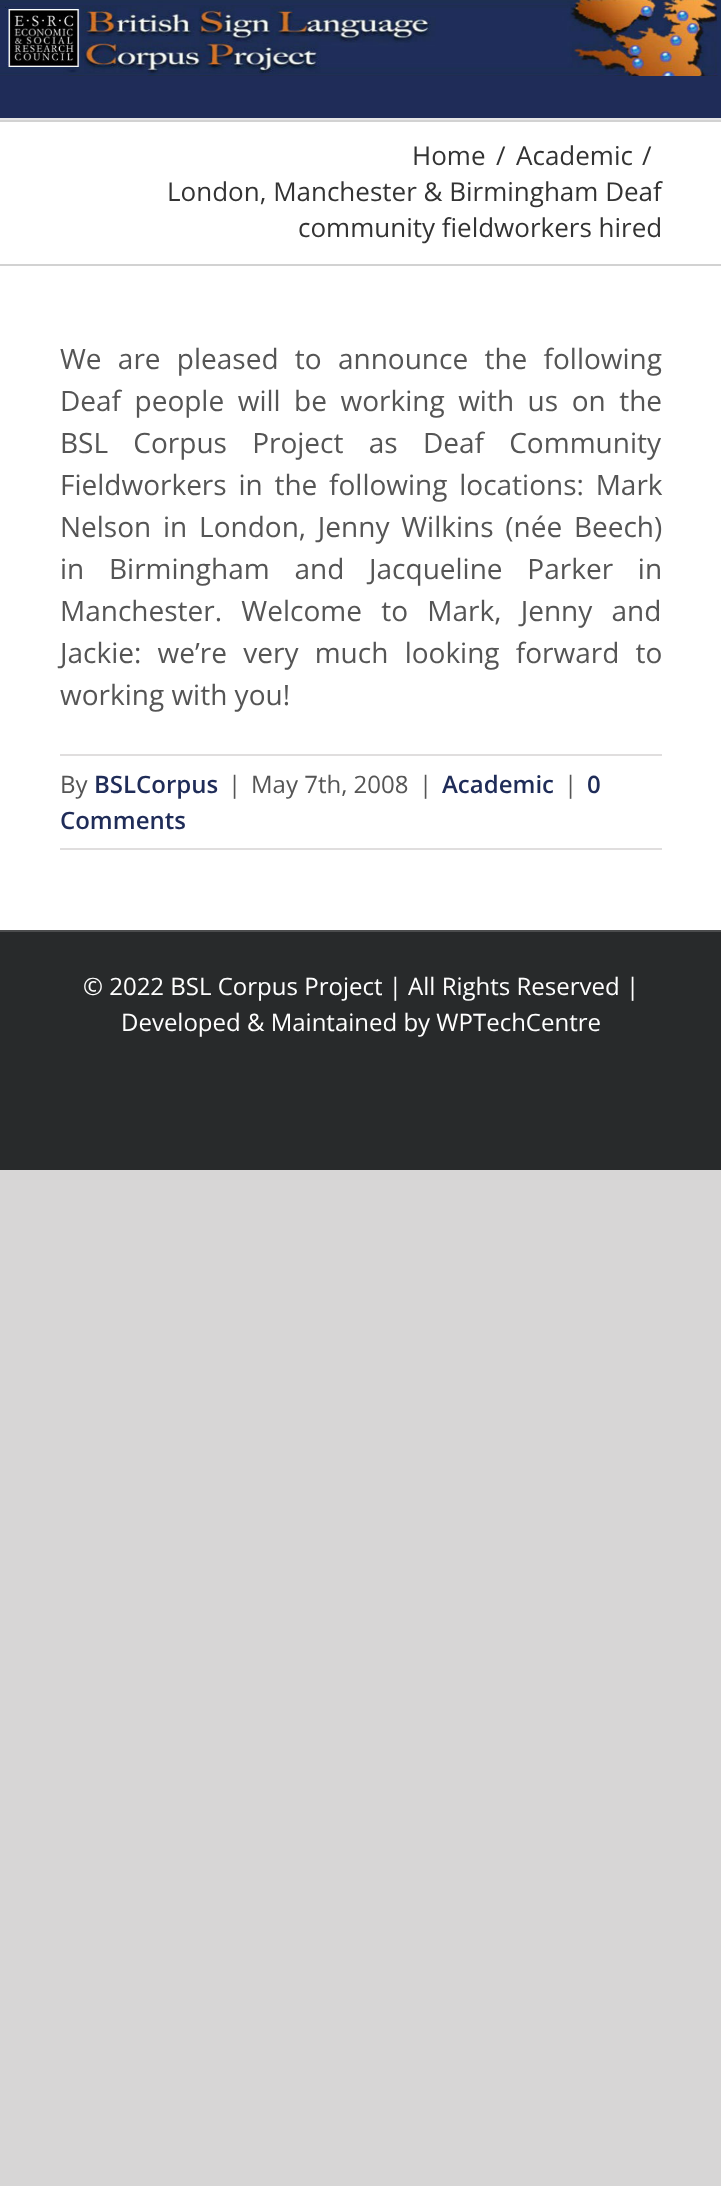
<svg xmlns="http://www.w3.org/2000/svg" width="721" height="2186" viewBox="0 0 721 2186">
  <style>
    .t1 { font: 26px Open Sans; fill: #333; }
    .t2 { font: 28px Open Sans; fill: #555; }
    .t3 { font: 24px Open Sans; fill: #555; }
    .t4 { font: 600 24px Open Sans; fill: #1f2c58; }
    .t5 { font: 24px Open Sans; fill: #fff; }
  </style>
  <rect width="100%" height="100%" fill="#d7d6d6"/>
  <rect x="0" y="118" width="721" height="2" fill="#e5e5e5"/>
  <rect x="0" y="76" width="721" height="42" fill="#1f2c58"/>
  <image x="0" y="0" width="721" height="76" href="images/1.png"/>
  <rect x="0" y="122" width="721" height="142" fill="#fff"/>
  <rect x="0" y="120" width="721" height="2" fill="#d2d2d2"/>
  <rect x="0" y="264" width="721" height="2" fill="#d2d2d2"/>
  <text x="412" y="165" class="t1">Home</text>
  <text x="496" y="165" class="t1">/</text>
  <text x="516" y="165" class="t1">Academic</text>
  <text x="642" y="165" class="t1">/</text>
  <text x="167" y="201" class="t1">London, Manchester &amp; Birmingham Deaf</text>
  <text x="298" y="237" class="t1">community fieldworkers hired</text>
  <rect x="0" y="266" width="721" height="664" fill="#fff"/>
  <text x="60" y="369" word-spacing="9" class="t2">We are pleased to announce the following</text>
  <text x="60" y="411" word-spacing="6.25" class="t2">Deaf people will be working with us on the</text>
  <text x="60" y="453" word-spacing="18" class="t2">BSL Corpus Project as Deaf Community</text>
  <text x="60" y="495" word-spacing="4.5" class="t2">Fieldworkers in the following locations: Mark</text>
  <text x="60" y="537" word-spacing="4.5" class="t2">Nelson in London, Jenny Wilkins (née Beech)</text>
  <text x="60" y="579" word-spacing="17.5" class="t2">in Birmingham and Jacqueline Parker in</text>
  <text x="60" y="621" word-spacing="12" class="t2">Manchester. Welcome to Mark, Jenny and</text>
  <text x="60" y="663" word-spacing="9" class="t2">Jackie: we’re very much looking forward to</text>
  <text x="60" y="705" class="t2">working with you!</text>
  <rect x="60" y="754" width="602" height="2" fill="#e0dede"/>
  <rect x="60" y="848" width="602" height="2" fill="#e0dede"/>
  <text x="60" y="793" class="t3">By</text>
  <text x="94" y="793" class="t4">BSLCorpus</text>
  <text x="228" y="793" class="t3">|</text>
  <text x="251" y="793" class="t3">May 7th, 2008</text>
  <text x="419" y="793" class="t3">|</text>
  <text x="442" y="793" class="t4">Academic</text>
  <text x="564" y="793" class="t3">|</text>
  <text x="587" y="793" class="t4">0</text>
  <text x="60" y="829" class="t4">Comments</text>
  <rect x="0" y="932" width="721" height="238" fill="#282a2b"/>
  <rect x="0" y="930" width="721" height="2" fill="#4b4c4d"/>
  <text x="83" y="995" class="t5">© 2022 BSL Corpus Project | All Rights Reserved |</text>
  <text x="121" y="1031" class="t5">Developed &amp; Maintained by WPTechCentre</text>
</svg>
